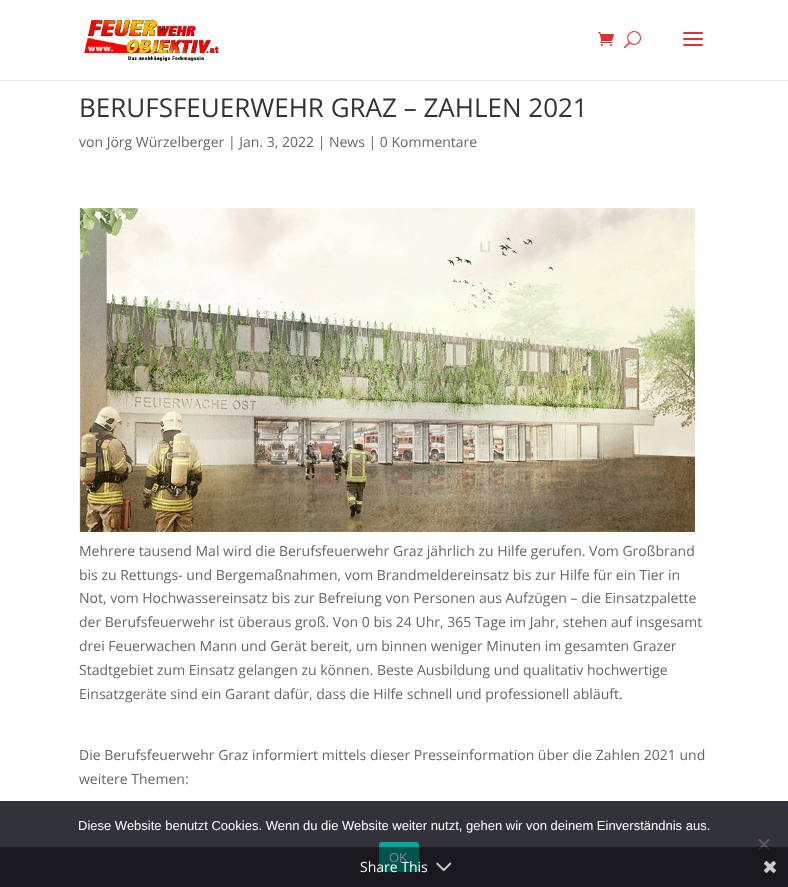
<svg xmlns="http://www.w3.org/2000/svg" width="788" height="887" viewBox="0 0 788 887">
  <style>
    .t1 { font: 26px Open Sans; fill: #333; }
    .t2 { font: 14px Open Sans; fill: #666; }
    .t3 { font: bold 14px Open Sans; fill: #e2ddd2; }
    .t4 { font: 13px Liberation Sans; fill: #fff; }
    .t5 { font: 14px Open Sans; fill: #fff; }
  </style>
  <rect width="100%" height="100%" fill="#fff"/>
  <rect x="0" y="80" width="788" height="1" fill="#e6e6e6"/>
  <image x="84" y="20" width="135" height="42" href="images/1.png"/>
  <image x="598" y="32" width="16" height="14" href="images/2.png"/>
  <image x="624" y="31" width="17" height="18" href="images/3.png"/>
  <image x="683" y="32" width="20" height="14" href="images/4.png"/>
  <text x="79" y="117" class="t1">BERUFSFEUERWEHR GRAZ – ZAHLEN 2021</text>
  <text x="79" y="147" class="t2">von Jörg Würzelberger | Jan. 3, 2022 | News | 0 Kommentare</text>
  <image x="79" y="208" width="616" height="324" href="images/5.png"/>
  <text x="479" y="252" class="t3">Li</text>
  <text x="79" y="556" class="t2">Mehrere tausend Mal wird die Berufsfeuerwehr Graz jährlich zu Hilfe gerufen. Vom Großbrand</text>
  <text x="79" y="580" class="t2">bis zu Rettungs- und Bergemaßnahmen, vom Brandmeldereinsatz bis zur Hilfe für ein Tier in</text>
  <text x="79" y="603" class="t2">Not, vom Hochwassereinsatz bis zur Befreiung von Personen aus Aufzügen – die Einsatzpalette</text>
  <text x="79" y="627" class="t2">der Berufsfeuerwehr ist überaus groß. Von 0 bis 24 Uhr, 365 Tage im Jahr, stehen auf insgesamt</text>
  <text x="79" y="651" class="t2">drei Feuerwachen Mann und Gerät bereit, um binnen weniger Minuten im gesamten Grazer</text>
  <text x="79" y="675" class="t2">Stadtgebiet zum Einsatz gelangen zu können. Beste Ausbildung und qualitativ hochwertige</text>
  <text x="79" y="699" class="t2">Einsatzgeräte sind ein Garant dafür, dass die Hilfe schnell und professionell abläuft.</text>
  <text x="79" y="760" class="t2">Die Berufsfeuerwehr Graz informiert mittels dieser Presseinformation über die Zahlen 2021 und</text>
  <text x="79" y="784" class="t2">weitere Themen:</text>
  <rect x="0" y="801" width="788" height="86" fill="#32323a"/>
  <text x="78" y="830" class="t4">Diese Website benutzt Cookies. Wenn du die Website weiter nutzt, gehen wir von deinem Einverständnis aus.</text>
  <path d="M768.5 838.5L770 840L759.5 850.5L758 849Z" fill="#59595d"/>
  <path d="M758 840L759.5 838.5L770 849L768.5 850.5Z" fill="#59595d"/>
  <rect x="379" y="842" width="40" height="30" rx="3" fill="#00a99d"/>
  <text x="389" y="862" class="t4">OK</text>
  <rect x="0" y="847" width="788" height="40" fill="#00000080"/>
  <text x="360" y="872" class="t5">Share This</text>
  <image x="436" y="862" width="16" height="10" href="images/6.png"/>
  <image x="764" y="861" width="12" height="12" href="images/7.png"/>
</svg>
